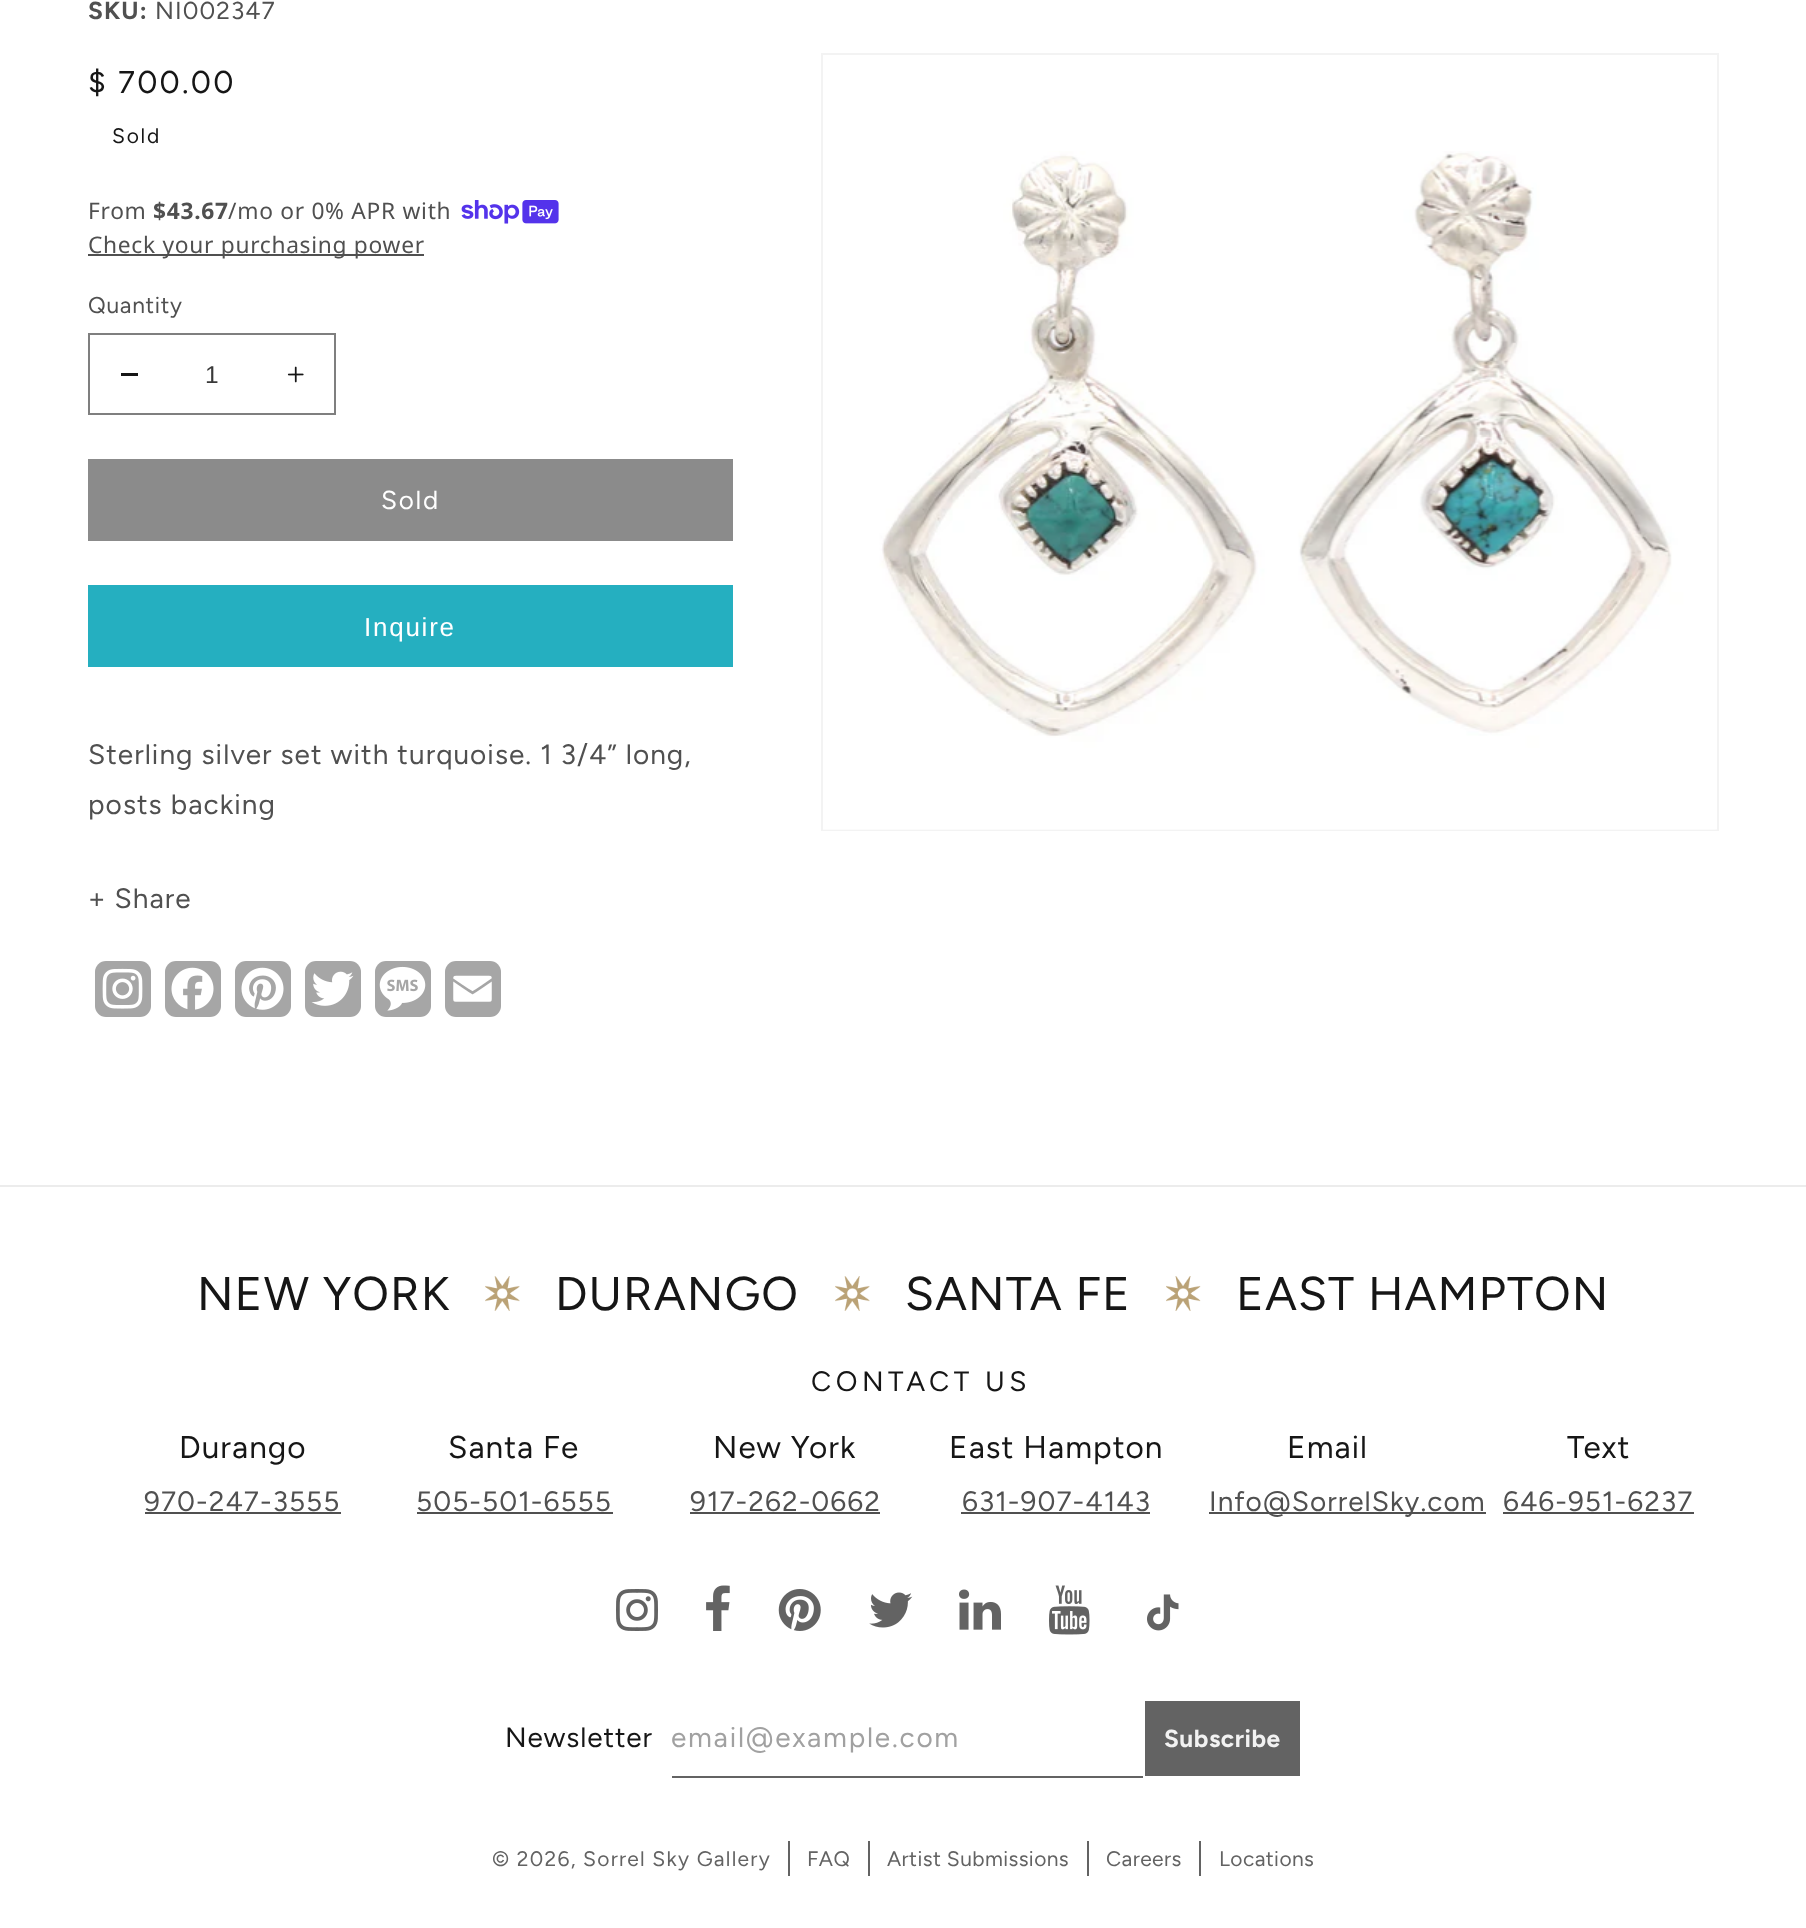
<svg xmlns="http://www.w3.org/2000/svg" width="1806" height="1928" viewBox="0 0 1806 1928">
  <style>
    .t1 { font: bold 24.5px Figtree; letter-spacing: 1.05px; fill: #505050; }
    .t2 { font: 24.5px Figtree; letter-spacing: 1.05px; fill: #505050; }
    .t3 { font: 31.5px Figtree; letter-spacing: 2.25px; fill: #161616; }
    .t4 { font: 21px Figtree; letter-spacing: 1.75px; fill: #161616; }
    .t5 { font: 22.75px Noto Sans; letter-spacing: 0.7px; fill: #505050; }
    .t6 { font: bold 22.75px Noto Sans; letter-spacing: 0.7px; fill: #505050; }
    .t7 { font: 22.75px Figtree; letter-spacing: 0.7px; fill: #505050; }
    .t8 { font: 24.5px Liberation Sans; fill: #393939; }
    .t9 { font: 26px Figtree; letter-spacing: 1.75px; fill: #fff; }
    .t10 { font: 26px Liberation Sans; letter-spacing: 1.75px; fill: #fff; }
    .t11 { font: 28px Figtree; letter-spacing: 1.05px; fill: #505050; }
    .t12 { font: 47.25px Figtree; letter-spacing: 1.05px; fill: #161616; }
    .t13 { font: 28px Figtree; letter-spacing: 4.5px; fill: #161616; }
    .t14 { font: 31.5px Figtree; letter-spacing: 1.05px; fill: #161616; }
    .t15 { font: 28px Figtree; letter-spacing: 0.9px; fill: #161616; }
    .t16 { font: 28px Figtree; letter-spacing: 1.75px; fill: #a1a1a1; }
    .t17 { font: bold 24.5px Figtree; letter-spacing: 0.5px; fill: #f2f2f2; }
    .t18 { font: 21px Figtree; letter-spacing: 1.25px; fill: #636363; }
    .t19 { font: 21px Figtree; letter-spacing: 0.4px; fill: #636363; }
  </style>
  <rect width="100%" height="100%" fill="#fff"/>
  <text x="88" y="19" class="t1">SKU:</text>
  <text x="155" y="19" class="t2">NI002347</text>
  <text x="88" y="93" class="t3">$ 700.00</text>
  <text x="112" y="143" class="t4">Sold</text>
  <text x="88" y="219" class="t5">From</text>
  <text x="153" y="219" class="t6">$43.67</text>
  <text x="228" y="219" class="t5">/mo or 0% APR with</text>
  <image x="461" y="200" width="98" height="24" href="images/1.png"/>
  <rect x="88" y="254" width="336" height="2" fill="#505050"/>
  <text x="88" y="253" class="t5">Check your purchasing power</text>
  <text x="88" y="313" class="t7">Quantity</text>
  <rect x="121" y="373" width="17" height="3" fill="#161616"/>
  <image x="287" y="366" width="17" height="17" href="images/2.png"/>
  <rect x="89" y="334" width="246" height="80" fill="none" stroke="#7f7f7f" stroke-width="2"/>
  <text x="205" y="383" class="t8">1</text>
  <rect x="88" y="459" width="645" height="82" fill="#8b8b8b"/>
  <text x="381" y="509" class="t9">Sold</text>
  <rect x="88" y="585" width="645" height="82" fill="#25afc0"/>
  <text x="364" y="636" class="t10">Inquire</text>
  <text x="88" y="764" class="t11">Sterling silver set with turquoise. 1 3/4” long,</text>
  <text x="88" y="814" class="t11">posts backing</text>
  <text x="88" y="908" class="t11">+ Share</text>
  <rect x="95" y="961" width="56" height="56" rx="11" fill="#a6a6a6"/>
  <image x="102" y="968" width="41" height="41" href="images/3.png"/>
  <rect x="165" y="961" width="56" height="56" rx="11" fill="#a6a6a6"/>
  <image x="171" y="967" width="43" height="43" href="images/4.png"/>
  <rect x="235" y="961" width="56" height="56" rx="11" fill="#a6a6a6"/>
  <image x="241" y="967" width="43" height="43" href="images/5.png"/>
  <rect x="305" y="961" width="56" height="56" rx="11" fill="#a6a6a6"/>
  <image x="311" y="971" width="43" height="35" href="images/6.png"/>
  <rect x="375" y="961" width="56" height="56" rx="11" fill="#a6a6a6"/>
  <image x="379" y="966" width="47" height="45" href="images/7.png"/>
  <rect x="445" y="961" width="56" height="56" rx="11" fill="#a6a6a6"/>
  <image x="453" y="975" width="39" height="27" href="images/8.png"/>
  <rect x="822" y="54" width="896" height="776" fill="none" stroke="#f3f3f3" stroke-width="2"/>
  <image x="823" y="151" width="894" height="679" href="images/9.png"/>
  <rect x="0" y="1185" width="1806" height="2" fill="#ececec"/>
  <text x="197" y="1310" class="t12">NEW YORK</text>
  <image x="485" y="1276" width="35" height="35" href="images/10.png"/>
  <text x="555" y="1310" class="t12">DURANGO</text>
  <image x="835" y="1276" width="35" height="35" href="images/11.png"/>
  <text x="905" y="1310" class="t12">SANTA FE</text>
  <image x="1166" y="1276" width="35" height="35" href="images/12.png"/>
  <text x="1236" y="1310" class="t12">EAST HAMPTON</text>
  <text x="811" y="1391" class="t13">CONTACT US</text>
  <text x="179" y="1458" class="t14">Durango</text>
  <text x="144" y="1511" class="t11">970-247-3555</text>
  <rect x="145" y="1512" width="196" height="2" fill="#505050"/>
  <text x="448" y="1458" class="t14">Santa Fe</text>
  <text x="416" y="1511" class="t11">505-501-6555</text>
  <rect x="417" y="1512" width="196" height="2" fill="#505050"/>
  <text x="713" y="1458" class="t14">New York</text>
  <text x="690" y="1511" class="t11">917-262-0662</text>
  <rect x="690" y="1512" width="190" height="2" fill="#505050"/>
  <text x="949" y="1458" class="t14">East Hampton</text>
  <text x="962" y="1511" class="t11">631-907-4143</text>
  <rect x="961" y="1512" width="189" height="2" fill="#505050"/>
  <text x="1287" y="1458" class="t14">Email</text>
  <rect x="1209" y="1512" width="277" height="2" fill="#505050"/>
  <text x="1209" y="1511" class="t11">Info@SorrelSky.com</text>
  <text x="1567" y="1458" class="t14">Text</text>
  <text x="1503" y="1511" class="t11">646-951-6237</text>
  <rect x="1503" y="1512" width="191" height="2" fill="#505050"/>
  <image x="616" y="1589" width="42" height="42" href="images/13.png"/>
  <image x="706" y="1585" width="24" height="46" href="images/14.png"/>
  <image x="778" y="1589" width="43" height="42" href="images/15.png"/>
  <image x="869" y="1592" width="44" height="36" href="images/16.png"/>
  <image x="959" y="1589" width="42" height="41" href="images/17.png"/>
  <image x="1049" y="1585" width="41" height="50" href="images/18.png"/>
  <image x="1147" y="1594" width="32" height="37" href="images/19.png"/>
  <text x="505" y="1747" class="t15">Newsletter</text>
  <text x="671" y="1747" class="t16">email@example.com</text>
  <rect x="1145" y="1701" width="155" height="75" fill="#636363"/>
  <text x="1164" y="1747" class="t17">Subscribe</text>
  <rect x="672" y="1776" width="471" height="2" fill="#636363"/>
  <text x="492" y="1866" class="t18">© 2026, Sorrel Sky Gallery</text>
  <rect x="788" y="1841" width="2" height="35" fill="#636363"/>
  <text x="807" y="1866" class="t19">FAQ</text>
  <rect x="868" y="1841" width="2" height="35" fill="#636363"/>
  <text x="887" y="1866" class="t19">Artist Submissions</text>
  <rect x="1087" y="1841" width="2" height="35" fill="#636363"/>
  <text x="1106" y="1866" class="t19">Careers</text>
  <rect x="1199" y="1841" width="2" height="35" fill="#636363"/>
  <text x="1219" y="1866" class="t19">Locations</text>
</svg>
